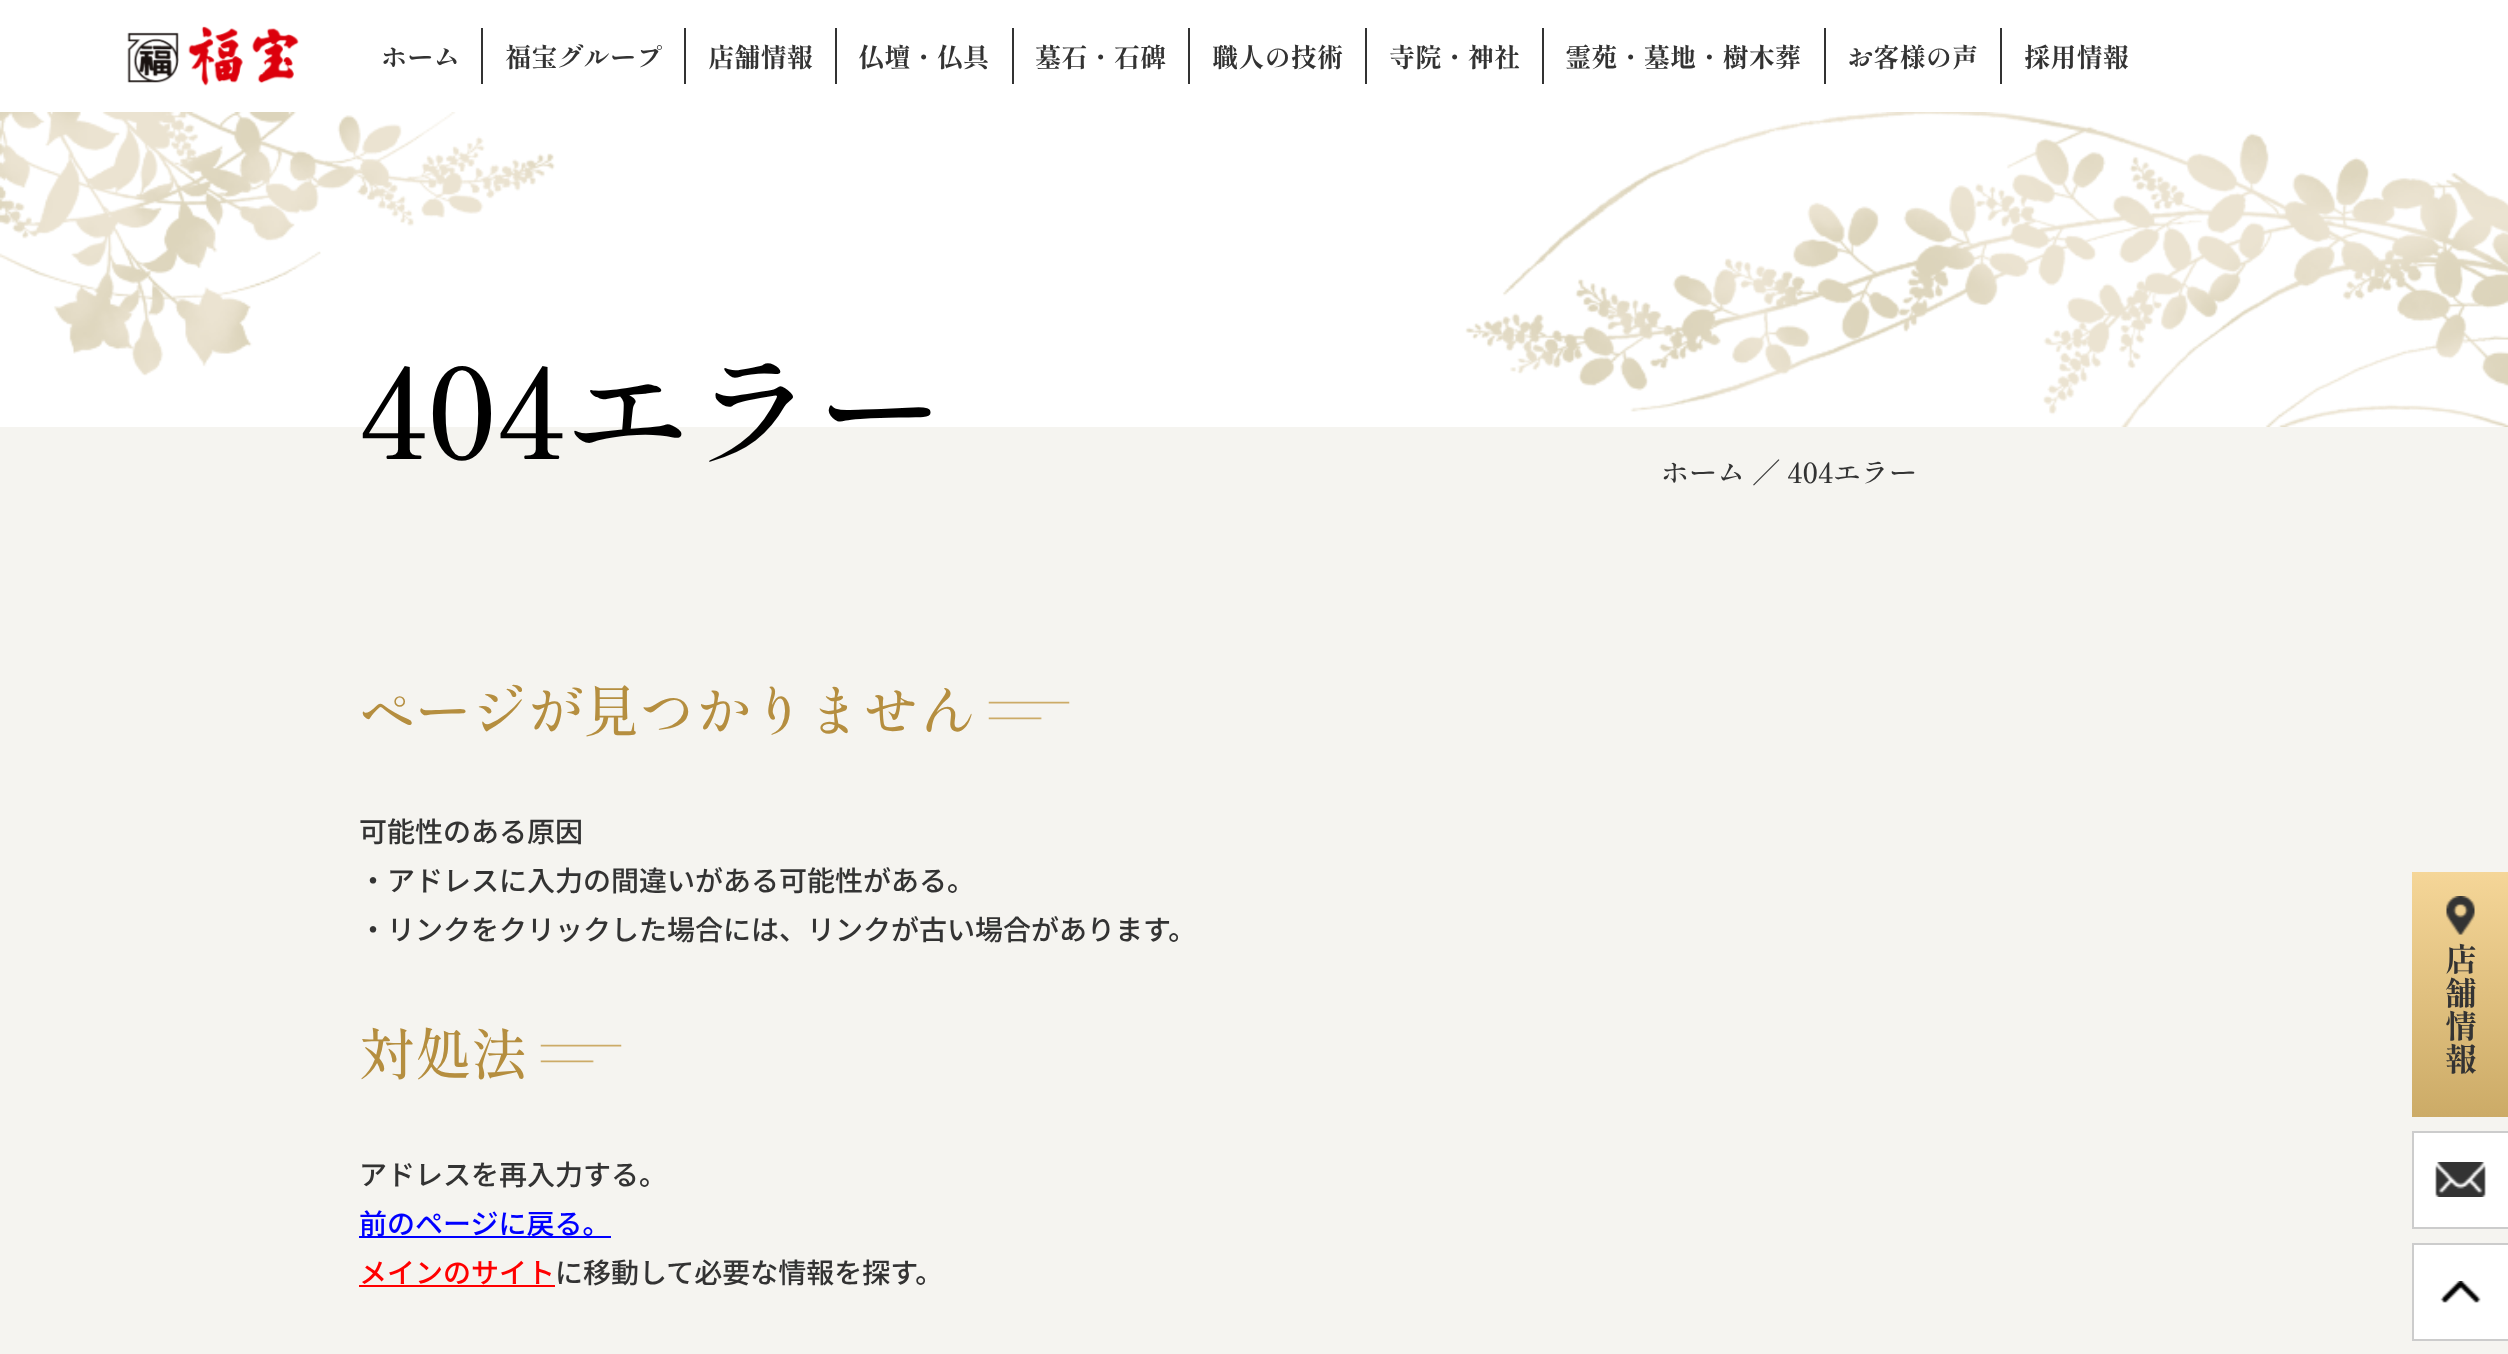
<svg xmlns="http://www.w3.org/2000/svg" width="2508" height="1354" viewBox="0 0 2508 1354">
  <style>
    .t1 { font: bold 26.25px Shippori Mincho; fill: #333; }
    .t2 { font: 500 126px Shippori Mincho; fill: #000; }
    .t3 { font: 500 28px Shippori Mincho; fill: #333; }
    .t4 { font: 500 56px Shippori Mincho; fill: #b58e3f; }
    .t5 { font: 500 28px Noto Sans JP; fill: #333; }
    .t6 { font: 500 28px Noto Sans JP; fill: #00f; }
    .t7 { font: 500 28px Noto Sans JP; fill: #f00; }
    .t8 { font: bold 32px Shippori Mincho; fill: #333; }
  </style>
  <defs>
    <linearGradient id="g1" gradientUnits="userSpaceOnUse" x1="2461" y1="872" x2="2461" y2="1117"><stop offset="0" stop-color="#f5d698"/><stop offset="1" stop-color="#ccab67"/></linearGradient>
  </defs>
  <rect width="100%" height="100%" fill="#f5f4f0"/>
  <rect x="0" y="0" width="2508" height="427" fill="#fff"/>
  <image x="127" y="26" width="172" height="60" href="images/1.png"/>
  <text x="381" y="67" class="t1">ホーム</text>
  <rect x="481" y="28" width="2" height="56" fill="#333"/>
  <text x="505" y="67" class="t1">福宝グループ</text>
  <rect x="684" y="28" width="2" height="56" fill="#333"/>
  <text x="708" y="67" class="t1">店舗情報</text>
  <rect x="835" y="28" width="2" height="56" fill="#333"/>
  <text x="858" y="67" class="t1">仏壇・仏具</text>
  <rect x="1012" y="28" width="2" height="56" fill="#333"/>
  <text x="1035" y="67" class="t1">墓石・石碑</text>
  <rect x="1188" y="28" width="2" height="56" fill="#333"/>
  <text x="1212" y="67" class="t1">職人の技術</text>
  <rect x="1365" y="28" width="2" height="56" fill="#333"/>
  <text x="1389" y="67" class="t1">寺院・神社</text>
  <rect x="1542" y="28" width="2" height="56" fill="#333"/>
  <text x="1565" y="67" class="t1">霊苑・墓地・樹木葬</text>
  <rect x="1824" y="28" width="2" height="56" fill="#333"/>
  <text x="1847" y="67" class="t1">お客様の声</text>
  <rect x="2000" y="28" width="2" height="56" fill="#333"/>
  <text x="2024" y="67" class="t1">採用情報</text>
  <image x="0" y="112" width="555" height="264" href="images/2.png"/>
  <text x="359" y="459" class="t2">404エラー</text>
  <image x="1465" y="112" width="1043" height="315" href="images/3.png"/>
  <text x="1661" y="483" class="t3">ホーム ／ 404エラー</text>
  <text x="359" y="732" class="t4">ページが見つかりません</text>
  <image x="988" y="701" width="82" height="19" href="images/4.png"/>
  <text x="359" y="842" class="t5">可能性のある原因</text>
  <text x="359" y="891" class="t5">・アドレスに入力の間違いがある可能性がある。</text>
  <text x="359" y="940" class="t5">・リンクをクリックした場合には、リンクが古い場合があります。</text>
  <text x="359" y="1075" class="t4">対処法</text>
  <image x="540" y="1044" width="82" height="19" href="images/4.png"/>
  <text x="359" y="1185" class="t5">アドレスを再入力する。</text>
  <rect x="359" y="1236" width="252" height="2" fill="#00f"/>
  <text x="359" y="1234" class="t6">前のページに戻る。</text>
  <text x="359" y="1283" class="t7">メインのサイト</text>
  <rect x="359" y="1285" width="196" height="2" fill="#f00"/>
  <text x="555" y="1283" class="t5">に移動して必要な情報を探す。</text>
  <rect x="2412" y="872" width="96" height="245" fill="url(#g1)"/>
  <image x="2446" y="896" width="29" height="39" href="images/5.png"/>
  <text x="2445" y="971" class="t8">店</text>
  <text x="2445" y="1005" class="t8">舗</text>
  <text x="2445" y="1038" class="t8">情</text>
  <text x="2445" y="1071" class="t8">報</text>
  <rect x="2414" y="1133" width="94" height="94" fill="#fff"/>
  <image x="2435" y="1162" width="51" height="35" href="images/6.png"/>
  <rect x="2413" y="1132" width="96" height="96" fill="none" stroke="#ccc" stroke-width="2"/>
  <rect x="2414" y="1245" width="94" height="94" fill="#fff"/>
  <image x="2440" y="1281" width="41" height="22" href="images/7.png"/>
  <rect x="2413" y="1244" width="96" height="96" fill="none" stroke="#ccc" stroke-width="2"/>
</svg>
